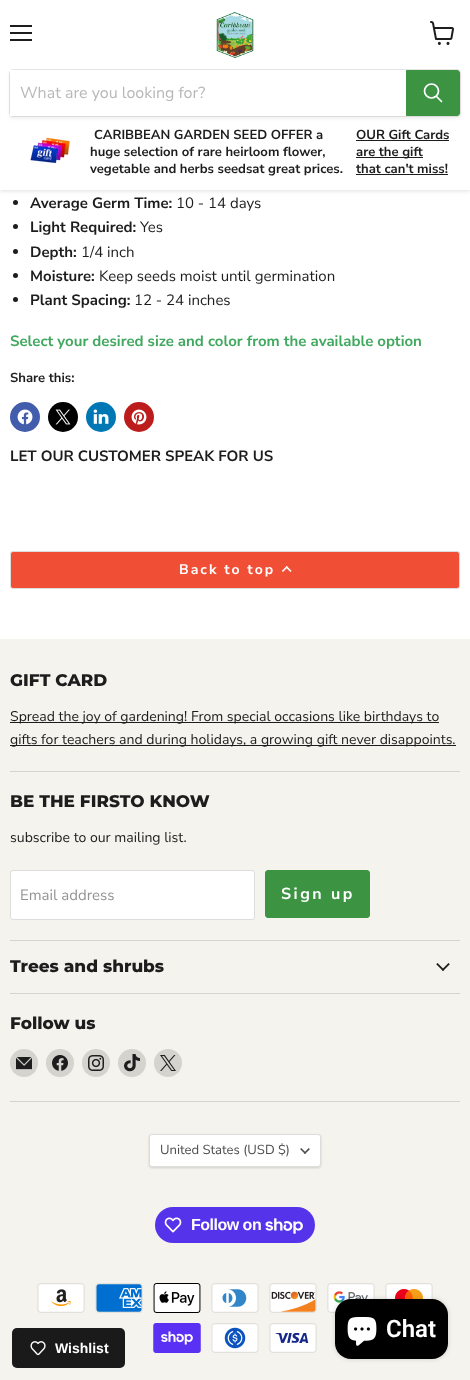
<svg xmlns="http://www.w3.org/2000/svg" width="470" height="1380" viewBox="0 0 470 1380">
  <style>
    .t1 { font: 16px Nunito Sans; fill: #b8b8b8; }
    .t2 { font: bold 13.1px Nunito Sans; fill: #1d1d1d; }
    .t3 { font: bold 15px Nunito Sans; fill: #1d1d1d; }
    .t4 { font: 15px Nunito Sans; fill: #1d1d1d; }
    .t5 { font: bold 15px Nunito Sans; fill: #41a85f; }
    .t6 { font: bold 14px Nunito Sans; letter-spacing: 2px; fill: #fff; }
    .t7 { font: 800 16.9px Montserrat; fill: #1d1d1d; }
    .t8 { font: 14.05px Nunito Sans; fill: #1d1d1d; }
    .t9 { font: 15px Nunito Sans; fill: #949494; }
    .t10 { font: bold 16px Nunito Sans; letter-spacing: 2.5px; fill: #fff; }
    .t11 { font: 13.1px Nunito Sans; fill: #4d4d4d; }
    .t12 { font: bold 16px Liberation Sans; letter-spacing: -0.5px; fill: #fff; }
    .t13 { font: 600 24px Roboto; fill: #fff; }
    .t14 { font: bold 14px Liberation Sans; fill: #fff; }
  </style>
  <rect width="100%" height="100%" fill="#fff"/>
  <rect x="0" y="1" width="470" height="190" fill="#80808040" filter="blur(2px)"/>
  <rect x="0" y="0" width="470" height="190" fill="#fff"/>
  <rect x="10" y="25" width="22" height="2" fill="#1d1d1d"/>
  <rect x="10" y="32" width="22" height="2" fill="#1d1d1d"/>
  <rect x="10" y="39" width="22" height="2" fill="#1d1d1d"/>
  <image x="430" y="21" width="24" height="24" href="images/1.png"/>
  <image x="216" y="12" width="38" height="46" href="images/2.png"/>
  <rect x="9" y="71" width="452" height="48" rx="4" fill="#8080801c" filter="blur(1.5px)"/>
  <rect x="9.5" y="69.5" width="451" height="47" rx="3.5" fill="none" stroke="#80808033"/>
  <rect x="10" y="70" width="396" height="46" fill="#fff"/>
  <text x="20" y="98" class="t1">What are you looking for?</text>
  <path d="M406.5 70.5H457C458.5 70.5 459.5 71.5 459.5 73V113C459.5 114.5 458.5 115.5 457 115.5H406.5Z" fill="#3c9342" stroke="#3c9342"/>
  <path d="M441.5 101.5L436.5 96.5" fill="none" stroke="#fff" stroke-width="1.7" stroke-linecap="round"/>
  <circle cx="431.5" cy="91" r="7" fill="none" stroke="#fff" stroke-width="1.7"/>
  <image x="30" y="137" width="40" height="27" href="images/3.png"/>
  <text x="94" y="139" class="t2">CARIBBEAN GARDEN SEED OFFER a</text>
  <text x="90" y="156" class="t2">huge selection of rare heirloom flower,</text>
  <text x="90" y="173" class="t2">vegetable and herbs seedsat great prices.</text>
  <text x="356" y="139" class="t2">OUR Gift Cards</text>
  <rect x="356" y="140" width="93" height="1" fill="#1d1d1d"/>
  <rect x="356" y="157" width="67" height="1" fill="#1d1d1d"/>
  <text x="356" y="156" class="t2">are the gift</text>
  <text x="356" y="173" class="t2">that can't miss!</text>
  <rect x="356" y="174" width="92" height="1" fill="#1d1d1d"/>
  <circle cx="15.5" cy="202.5" r="2.5" fill="#1d1d1d"/>
  <text x="30" y="208" class="t3">Average Germ Time:</text>
  <text x="176" y="208" class="t4">10 - 14 days</text>
  <circle cx="15.5" cy="226.5" r="2.5" fill="#1d1d1d"/>
  <text x="30" y="232" class="t3">Light Required:</text>
  <text x="140" y="232" class="t4">Yes</text>
  <circle cx="15.5" cy="251.5" r="2.5" fill="#1d1d1d"/>
  <text x="30" y="257" class="t3">Depth:</text>
  <text x="81" y="257" class="t4">1/4 inch</text>
  <circle cx="15.5" cy="275.5" r="2.5" fill="#1d1d1d"/>
  <text x="30" y="281" class="t3">Moisture:</text>
  <text x="99" y="281" class="t4">Keep seeds moist until germination</text>
  <circle cx="15.5" cy="299.5" r="2.5" fill="#1d1d1d"/>
  <text x="30" y="305" class="t3">Plant Spacing:</text>
  <text x="134" y="305" class="t4">12 - 24 inches</text>
  <text x="10" y="346" class="t5">Select your desired size and color from the available option</text>
  <text x="10" y="382" class="t2">Share this:</text>
  <circle cx="25" cy="417" r="15" fill="#425dab"/>
  <image x="17" y="409" width="16" height="16" href="images/4.png"/>
  <circle cx="63" cy="417" r="15" fill="#000"/>
  <image x="55" y="409" width="16" height="16" href="images/5.png"/>
  <circle cx="101" cy="417" r="15" fill="#0077b5"/>
  <image x="93" y="409" width="16" height="15" href="images/6.png"/>
  <circle cx="139" cy="417" r="15" fill="#bd1c1c"/>
  <image x="131" y="409" width="16" height="16" href="images/7.png"/>
  <text x="10" y="461" class="t3">LET OUR CUSTOMER SPEAK FOR US</text>
  <rect x="10.5" y="551.5" width="449" height="37" rx="2.5" fill="#f04f36" stroke="#ddd"/>
  <text x="179" y="574" class="t6">Back to top</text>
  <image x="282" y="566" width="10" height="6" href="images/8.png"/>
  <rect x="0" y="639" width="470" height="741" fill="#f5f3ed"/>
  <rect x="10" y="771" width="450" height="1" fill="#d5d3ce"/>
  <text x="10" y="686" class="t7">GIFT CARD</text>
  <rect x="10" y="722" width="429" height="1" fill="#1d1d1d"/>
  <text x="10" y="721" class="t8">Spread the joy of gardening! From special occasions like birthdays to</text>
  <rect x="10" y="745" width="446" height="1" fill="#1d1d1d"/>
  <text x="10" y="744" class="t8">gifts for teachers and during holidays, a growing gift never disappoints.</text>
  <rect x="10" y="940" width="450" height="1" fill="#d5d3ce"/>
  <text x="10" y="807" class="t7">BE THE FIRSTO KNOW</text>
  <text x="10" y="842" class="t8">subscribe to our mailing list.</text>
  <rect x="10.5" y="870.5" width="244" height="49" rx="2.5" fill="#fff" stroke="#ddd"/>
  <text x="20" y="900" class="t9">Email address</text>
  <rect x="265.5" y="870.5" width="104" height="47" rx="2.5" fill="#3c9342" stroke="#3c9342"/>
  <text x="281" y="899" class="t10">Sign up</text>
  <rect x="10" y="993" width="450" height="1" fill="#d5d3ce"/>
  <text x="10" y="972" class="t7">Trees and shrubs</text>
  <image x="436" y="963" width="14" height="8" href="images/9.png"/>
  <rect x="10" y="1101" width="450" height="1" fill="#d5d3ce"/>
  <text x="10" y="1029" class="t7">Follow us</text>
  <circle cx="24" cy="1063" r="14" fill="#d5d3ce"/>
  <image x="16" y="1057" width="16" height="13" href="images/10.png"/>
  <circle cx="60" cy="1063" r="14" fill="#d5d3ce"/>
  <image x="52" y="1055" width="16" height="16" href="images/11.png"/>
  <circle cx="96" cy="1063" r="14" fill="#d5d3ce"/>
  <image x="88" y="1055" width="16" height="16" href="images/12.png"/>
  <circle cx="132" cy="1063" r="14" fill="#d5d3ce"/>
  <image x="124" y="1054" width="16" height="18" href="images/13.png"/>
  <circle cx="168" cy="1063" r="14" fill="#d5d3ce"/>
  <image x="160" y="1055" width="16" height="16" href="images/14.png"/>
  <rect x="149" y="1135" width="172" height="33" rx="3" fill="#00000026" filter="blur(1px)"/>
  <rect x="149.5" y="1134.5" width="171" height="32" rx="2.5" fill="#fff" stroke="#ddd"/>
  <text x="160" y="1154" class="t11">United States (USD $)</text>
  <image x="300" y="1148" width="10" height="6" href="images/15.png"/>
  <rect x="155" y="1207" width="160" height="36" rx="18" fill="#5433eb"/>
  <image x="164" y="1217" width="18" height="16" href="images/16.png"/>
  <text x="191" y="1230" class="t12">Follow on</text>
  <image x="265" y="1218" width="38" height="16" href="images/17.png"/>
  <image x="37" y="1283" width="48" height="30" href="images/18.png"/>
  <image x="95" y="1283" width="48" height="30" href="images/19.png"/>
  <image x="153" y="1283" width="48" height="30" href="images/20.png"/>
  <image x="211" y="1283" width="48" height="30" href="images/21.png"/>
  <image x="269" y="1283" width="48" height="30" href="images/22.png"/>
  <image x="327" y="1283" width="48" height="30" href="images/23.png"/>
  <image x="385" y="1283" width="48" height="17" href="images/24.png"/>
  <image x="153" y="1323" width="48" height="30" href="images/25.png"/>
  <image x="211" y="1323" width="48" height="30" href="images/26.png"/>
  <image x="269" y="1323" width="48" height="30" href="images/27.png"/>
  <rect x="335" y="1299" width="113" height="60" rx="16" fill="#00000026" filter="blur(2.5px)"/>
  <rect x="335" y="1299" width="113" height="60" rx="16" fill="#000"/>
  <image x="347" y="1317" width="30" height="29" href="images/28.png"/>
  <text x="386" y="1337" class="t13">Chat</text>
  <rect x="12" y="1328" width="113" height="40" rx="5" fill="#1a1a1a"/>
  <image x="30" y="1341" width="16" height="15" href="images/29.png"/>
  <text x="55" y="1353" class="t14">Wishlist</text>
</svg>
